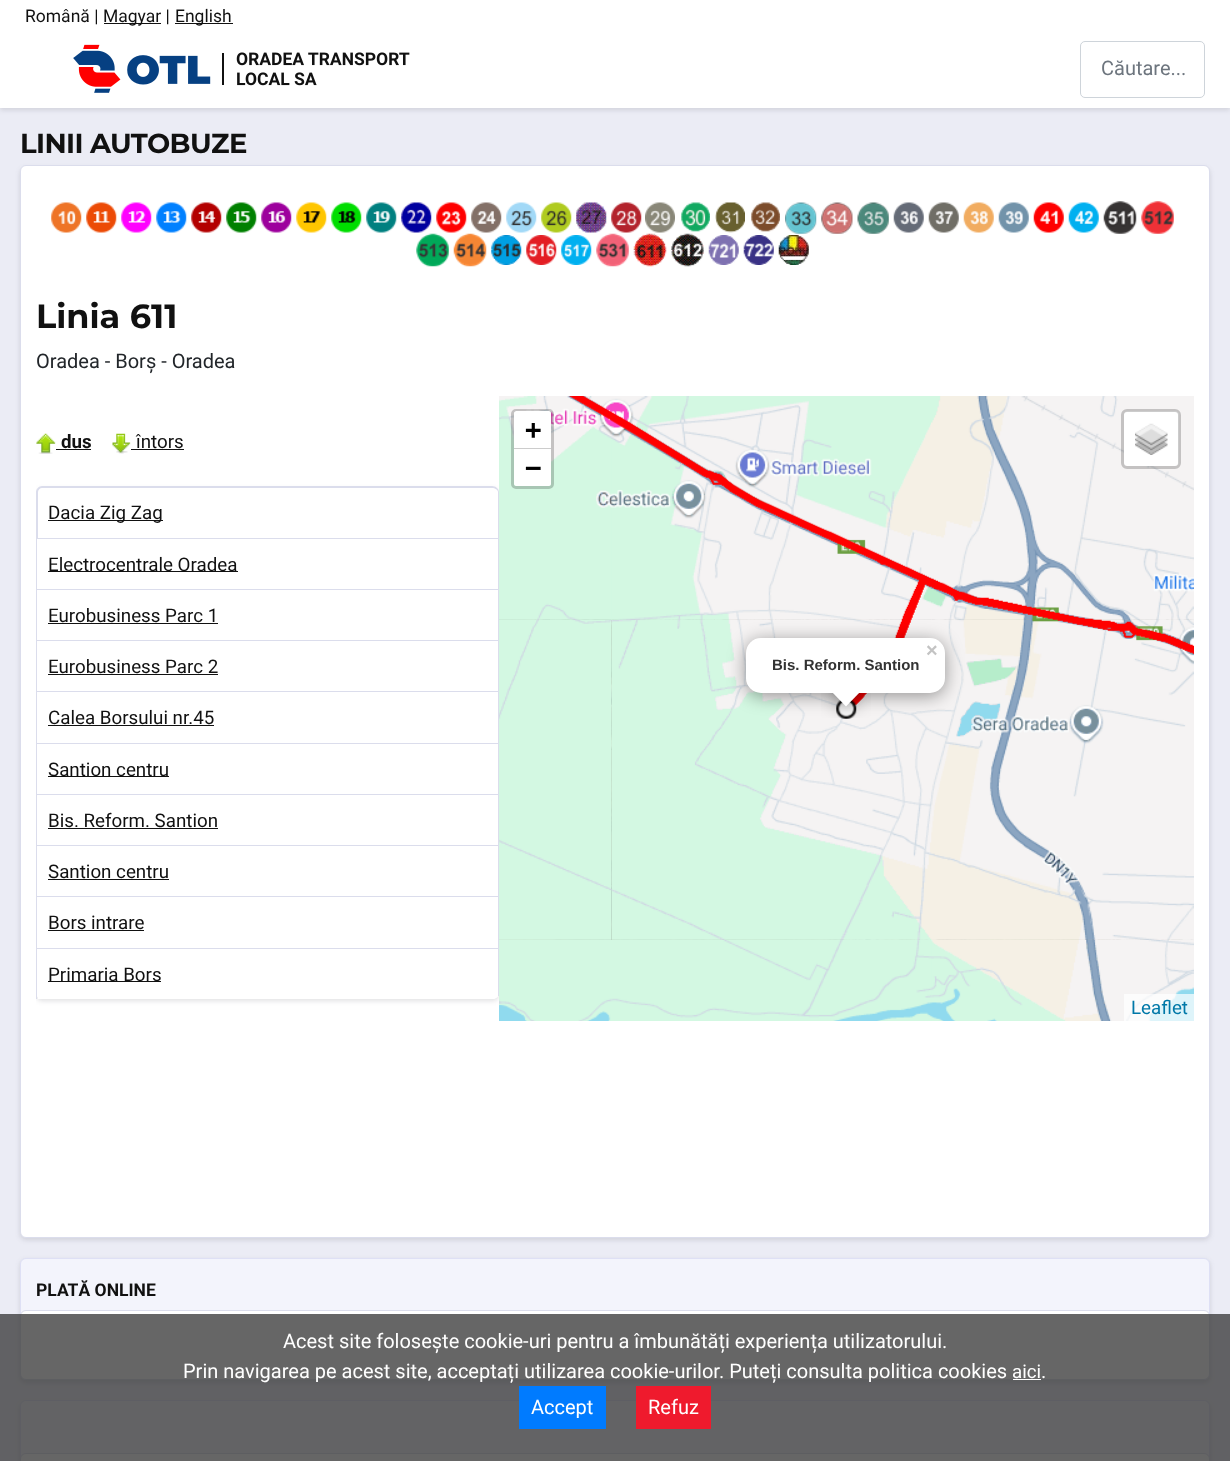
<svg xmlns="http://www.w3.org/2000/svg" width="1230" height="1461" viewBox="0 0 1230 1461">
  <style>
    .t1 { font: 17.5px Roboto; fill: #111; }
    .t2 { font: 20px Roboto; fill: #6d757e; }
    .t3 { font: bold 27.5px Montserrat; letter-spacing: -0.6px; fill: #111; }
    .t4 { font: bold 33.5px Montserrat; fill: #111; }
    .t5 { font: 20px Roboto; fill: #22262a; }
    .t6 { font: bold 18.75px Roboto; fill: #111; }
    .t7 { font: 18.75px Roboto; fill: #111; }
    .t8 { font: bold 27.5px DejaVu Sans Mono; fill: #000; }
    .t9 { font: 18.75px Roboto; fill: #0078a8; }
    .t10 { font: bold 20px Liberation Sans; fill: #c3c3c3; }
    .t11 { font: bold 15px Liberation Sans; fill: #333; }
    .t12 { font: bold 17.5px Roboto; fill: #111; }
    .t13 { font: 20px Roboto; fill: #fff; }
    .t14 { font: 18.75px Roboto; fill: #fff; }
  </style>
  <defs>
    <clipPath id="clip1"><rect x="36" y="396" width="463" height="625"/></clipPath>
    <clipPath id="clip2"><path d="M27 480H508V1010H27ZM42 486H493C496.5 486 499 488.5 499 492V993C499 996.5 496.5 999 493 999H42C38.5 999 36 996.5 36 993V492C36 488.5 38.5 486 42 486Z" clip-rule="evenodd"/></clipPath>
    <clipPath id="clip3"><rect x="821" y="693" width="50" height="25"/></clipPath>
    <clipPath id="clip4"><rect x="821" y="693" width="50" height="25"/></clipPath>
  </defs>
  <rect width="100%" height="100%" fill="#ebecf5"/>
  <rect x="0" y="3" width="1230" height="107" fill="#39384426" filter="blur(2.5px)"/>
  <rect x="0" y="0" width="1230" height="108" fill="#fff"/>
  <text x="25" y="22" class="t1">Română |</text>
  <rect x="104" y="23" width="57" height="1" fill="#111"/>
  <text x="103" y="22" class="t1">Magyar |</text>
  <rect x="175" y="23" width="58" height="1" fill="#111"/>
  <text x="175" y="22" class="t1">English</text>
  <image x="73" y="44" width="337" height="49" href="images/1.png"/>
  <rect x="1080.5" y="41.5" width="124" height="56" rx="4.5" fill="none" stroke="#ced4da"/>
  <text x="1101" y="75" class="t2">Căutare...</text>
  <text x="20" y="153" class="t3">LINII AUTOBUZE</text>
  <rect x="20" y="168" width="1190" height="1072" rx="6" fill="#39384426" filter="blur(2.5px)"/>
  <rect x="20.5" y="165.5" width="1189" height="1072" rx="5.5" fill="#fff" stroke="#dbddec"/>
  <image x="51" y="202" width="31" height="31" href="images/2.png"/>
  <image x="86" y="202" width="31" height="31" href="images/3.png"/>
  <image x="121" y="202" width="31" height="31" href="images/4.png"/>
  <image x="156" y="202" width="31" height="31" href="images/5.png"/>
  <image x="191" y="202" width="31" height="31" href="images/6.png"/>
  <image x="226" y="202" width="31" height="31" href="images/7.png"/>
  <image x="261" y="202" width="31" height="31" href="images/8.png"/>
  <image x="296" y="202" width="31" height="31" href="images/9.png"/>
  <image x="331" y="202" width="31" height="31" href="images/10.png"/>
  <image x="366" y="202" width="31" height="31" href="images/11.png"/>
  <image x="401" y="202" width="31" height="31" href="images/12.png"/>
  <image x="436" y="202" width="31" height="31" href="images/13.png"/>
  <image x="471" y="202" width="31" height="31" href="images/14.png"/>
  <image x="506" y="202" width="31" height="31" href="images/15.png"/>
  <image x="541" y="202" width="31" height="31" href="images/16.png"/>
  <image x="576" y="202" width="31" height="31" href="images/17.png"/>
  <image x="611" y="202" width="31" height="31" href="images/18.png"/>
  <image x="645" y="202" width="30" height="31" href="images/19.png"/>
  <image x="681" y="202" width="29" height="30" href="images/20.png"/>
  <image x="715" y="202" width="30" height="31" href="images/21.png"/>
  <image x="751" y="202" width="29" height="30" href="images/22.png"/>
  <image x="785" y="202" width="32" height="32" href="images/23.png"/>
  <image x="821" y="202" width="32" height="32" href="images/24.png"/>
  <image x="857" y="202" width="32" height="32" href="images/25.png"/>
  <image x="893" y="202" width="31" height="31" href="images/26.png"/>
  <image x="928" y="202" width="31" height="31" href="images/27.png"/>
  <image x="963" y="202" width="31" height="31" href="images/28.png"/>
  <image x="998" y="202" width="31" height="31" href="images/29.png"/>
  <image x="1033" y="202" width="31" height="31" href="images/30.png"/>
  <image x="1068" y="202" width="31" height="31" href="images/31.png"/>
  <image x="1103" y="201" width="34" height="33" href="images/32.png"/>
  <image x="1141" y="201" width="33" height="33" href="images/33.png"/>
  <image x="416" y="233" width="33" height="34" href="images/34.png"/>
  <image x="453" y="233" width="34" height="34" href="images/35.png"/>
  <image x="491" y="235" width="31" height="30" href="images/36.png"/>
  <image x="526" y="235" width="31" height="30" href="images/37.png"/>
  <image x="561" y="235" width="31" height="30" href="images/38.png"/>
  <image x="596" y="233" width="33" height="34" href="images/39.png"/>
  <image x="633" y="233" width="34" height="34" href="images/40.png"/>
  <image x="671" y="233" width="33" height="34" href="images/41.png"/>
  <image x="708" y="235" width="31" height="30" href="images/42.png"/>
  <image x="743" y="235" width="31" height="30" href="images/43.png"/>
  <image x="778" y="235" width="31" height="30" href="images/44.png"/>
  <text x="36" y="328" class="t4">Linia 611</text>
  <text x="36" y="368" class="t5">Oradea - Borș - Oradea</text>
  <image x="36" y="433" width="20" height="21" href="images/45.png"/>
  <text x="61" y="448" class="t6">dus</text>
  <rect x="56" y="449" width="35" height="1" fill="#111"/>
  <image x="112" y="433" width="19" height="21" href="images/46.png"/>
  <text x="136" y="448" class="t7">întors</text>
  <rect x="131" y="449" width="53" height="1" fill="#111"/>
  <g clip-path="url(#clip1)">
    <g clip-path="url(#clip2)">
      <rect x="36" y="489" width="463" height="512" rx="6" fill="#39384426" filter="blur(2.5px)"/>
    </g>
  </g>
  <path d="M42 486H492C496 486 499 489 499 492V538H36V492C36 489 39 486 42 486ZM42 488H492C495 488 498 490 498 492V538H38V492C38 490 40 488 42 488Z" fill="#dbddec" fill-rule="evenodd"/>
  <rect x="48" y="520" width="115" height="1" fill="#111"/>
  <text x="48" y="519" class="t7">Dacia Zig Zag</text>
  <rect x="36" y="538" width="463" height="1" fill="#dbddec"/>
  <rect x="498" y="538" width="1" height="51" fill="#dbddec"/>
  <rect x="36" y="538" width="1" height="51" fill="#dbddec"/>
  <rect x="48" y="571" width="190" height="1" fill="#111"/>
  <text x="48" y="571" class="t7">Electrocentrale Oradea</text>
  <rect x="36" y="589" width="463" height="1" fill="#dbddec"/>
  <rect x="498" y="589" width="1" height="51" fill="#dbddec"/>
  <rect x="36" y="589" width="1" height="51" fill="#dbddec"/>
  <text x="48" y="622" class="t7">Eurobusiness Parc 1</text>
  <rect x="48" y="623" width="170" height="1" fill="#111"/>
  <rect x="36" y="640" width="463" height="1" fill="#dbddec"/>
  <rect x="498" y="640" width="1" height="51" fill="#dbddec"/>
  <rect x="36" y="640" width="1" height="51" fill="#dbddec"/>
  <text x="48" y="673" class="t7">Eurobusiness Parc 2</text>
  <rect x="48" y="674" width="170" height="1" fill="#111"/>
  <rect x="36" y="691" width="463" height="1" fill="#dbddec"/>
  <rect x="498" y="691" width="1" height="52" fill="#dbddec"/>
  <rect x="36" y="691" width="1" height="52" fill="#dbddec"/>
  <text x="48" y="724" class="t7">Calea Borsului nr.45</text>
  <rect x="48" y="725" width="166" height="1" fill="#111"/>
  <rect x="36" y="743" width="463" height="1" fill="#dbddec"/>
  <rect x="498" y="743" width="1" height="51" fill="#dbddec"/>
  <rect x="36" y="743" width="1" height="51" fill="#dbddec"/>
  <rect x="48" y="776" width="121" height="1" fill="#111"/>
  <text x="48" y="776" class="t7">Santion centru</text>
  <rect x="36" y="794" width="463" height="1" fill="#dbddec"/>
  <rect x="498" y="794" width="1" height="51" fill="#dbddec"/>
  <rect x="36" y="794" width="1" height="51" fill="#dbddec"/>
  <text x="48" y="827" class="t7">Bis. Reform. Santion</text>
  <rect x="48" y="828" width="170" height="1" fill="#111"/>
  <rect x="36" y="845" width="463" height="1" fill="#dbddec"/>
  <rect x="498" y="845" width="1" height="51" fill="#dbddec"/>
  <rect x="36" y="845" width="1" height="51" fill="#dbddec"/>
  <text x="48" y="878" class="t7">Santion centru</text>
  <rect x="48" y="879" width="121" height="1" fill="#111"/>
  <rect x="36" y="896" width="463" height="1" fill="#dbddec"/>
  <rect x="498" y="896" width="1" height="52" fill="#dbddec"/>
  <rect x="36" y="896" width="1" height="52" fill="#dbddec"/>
  <text x="48" y="929" class="t7">Bors intrare</text>
  <rect x="48" y="930" width="96" height="1" fill="#111"/>
  <path d="M38 949H498V992C498 996 495 999 492 999H38Z" fill="#fff"/>
  <rect x="36" y="948" width="463" height="1" fill="#dbddec"/>
  <rect x="498" y="948" width="1" height="48" fill="#dbddec"/>
  <rect x="36" y="948" width="1" height="51" fill="#dbddec"/>
  <rect x="48" y="981" width="113" height="1" fill="#111"/>
  <text x="48" y="981" class="t7">Primaria Bors</text>
  <image x="931" y="939" width="263" height="1" href="images/62.png"/>
  <image x="611" y="620" width="321" height="320" href="images/61.png"/>
  <image x="611" y="619" width="321" height="2" href="images/58.png"/>
  <image x="931" y="620" width="263" height="320" href="images/53.png"/>
  <image x="931" y="940" width="263" height="81" href="images/56.png"/>
  <image x="499" y="620" width="113" height="320" href="images/60.png"/>
  <image x="499" y="619" width="113" height="2" href="images/57.png"/>
  <image x="611" y="620" width="321" height="321" href="images/52.png"/>
  <image x="931" y="619" width="263" height="1" href="images/59.png"/>
  <image x="611" y="396" width="321" height="225" href="images/49.png"/>
  <image x="611" y="940" width="321" height="81" href="images/55.png"/>
  <image x="499" y="620" width="113" height="321" href="images/51.png"/>
  <image x="499" y="396" width="113" height="225" href="images/48.png"/>
  <rect x="512.5" y="410.5" width="40" height="77" rx="3.5" fill="none" stroke="#00000033" stroke-width="3"/>
  <path d="M516.5 411H548.5C550 411 551 412 551 413.5V449H514V413.5C514 412 515 411 516.5 411Z" fill="#fff"/>
  <rect x="514" y="448" width="37" height="1" fill="#ccc"/>
  <text x="525" y="439" class="t8">+</text>
  <path d="M514 449H551V483.5C551 485 550 486 548.5 486H516.5C515 486 514 485 514 483.5Z" fill="#fff"/>
  <text x="525" y="477" class="t8">−</text>
  <image x="931" y="396" width="263" height="225" href="images/50.png"/>
  <image x="568" y="396" width="626" height="312" href="images/63.png"/>
  <rect x="1124" y="411" width="55" height="55" rx="4" fill="#fff"/>
  <rect x="1122.5" y="410.5" width="57" height="57" rx="4.5" fill="none" stroke="#00000033" stroke-width="3"/>
  <image x="1135" y="423" width="33" height="32" href="images/47.png"/>
  <rect x="1124" y="994" width="70" height="27" fill="#ffffffb3"/>
  <text x="1131" y="1014" class="t9">Leaflet</text>
  <image x="499" y="940" width="112" height="81" href="images/54.png"/>
  <image x="836" y="699" width="21" height="20" href="images/64.png"/>
  <rect x="746" y="641" width="199" height="55" rx="15" fill="#00000066" filter="blur(9px)"/>
  <rect x="746" y="638" width="199" height="55" rx="15" fill="#fff"/>
  <text x="926" y="657" class="t10">×</text>
  <g clip-path="url(#clip3)">
    <rect x="835" y="684" width="21" height="21" fill="#00000066" filter="blur(9px)"/>
  </g>
  <g clip-path="url(#clip4)">
    <path d="M846 676L861 691L846 706.5L831 691Z" fill="#fff"/>
  </g>
  <text x="772" y="670" class="t11">Bis. Reform. Santion</text>
  <rect x="20" y="1260" width="1190" height="123" rx="6" fill="#39384426" filter="blur(2.5px)"/>
  <rect x="20.5" y="1258.5" width="1189" height="121" rx="5.5" fill="#f3f4fc" stroke="#dee0f5"/>
  <text x="36" y="1296" class="t12">PLATĂ ONLINE</text>
  <rect x="20.5" y="1310.5" width="1189" height="69" rx="5.5" fill="#fff" stroke="#dbddec"/>
  <rect x="20" y="1403" width="1190" height="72" rx="6" fill="#39384426" filter="blur(2.5px)"/>
  <rect x="20.5" y="1400.5" width="1189" height="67" rx="5.5" fill="#f3f4fc" stroke="#dee0f5"/>
  <rect x="20.5" y="1453.5" width="1189" height="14" rx="5.5" fill="#fff" stroke="#dbddec"/>
  <rect x="0" y="1314" width="1230" height="147" fill="#333333bf"/>
  <text x="283" y="1348" class="t13">Acest site folosește cookie-uri pentru a îmbunătăți experiența utilizatorului.</text>
  <text x="183" y="1378" class="t13">Prin navigarea pe acest site, acceptați utilizarea cookie-urilor. Puteți consulta politica cookies</text>
  <text x="1012" y="1378" class="t14">aici</text>
  <rect x="1013" y="1379" width="28" height="1" fill="#fff"/>
  <text x="1041" y="1378" class="t13">.</text>
  <rect x="519" y="1386" width="87" height="43" fill="#007bff"/>
  <text x="531" y="1414" class="t13">Accept</text>
  <rect x="636" y="1386" width="75" height="43" fill="#ef1a2d"/>
  <text x="648" y="1414" class="t13">Refuz</text>
</svg>
